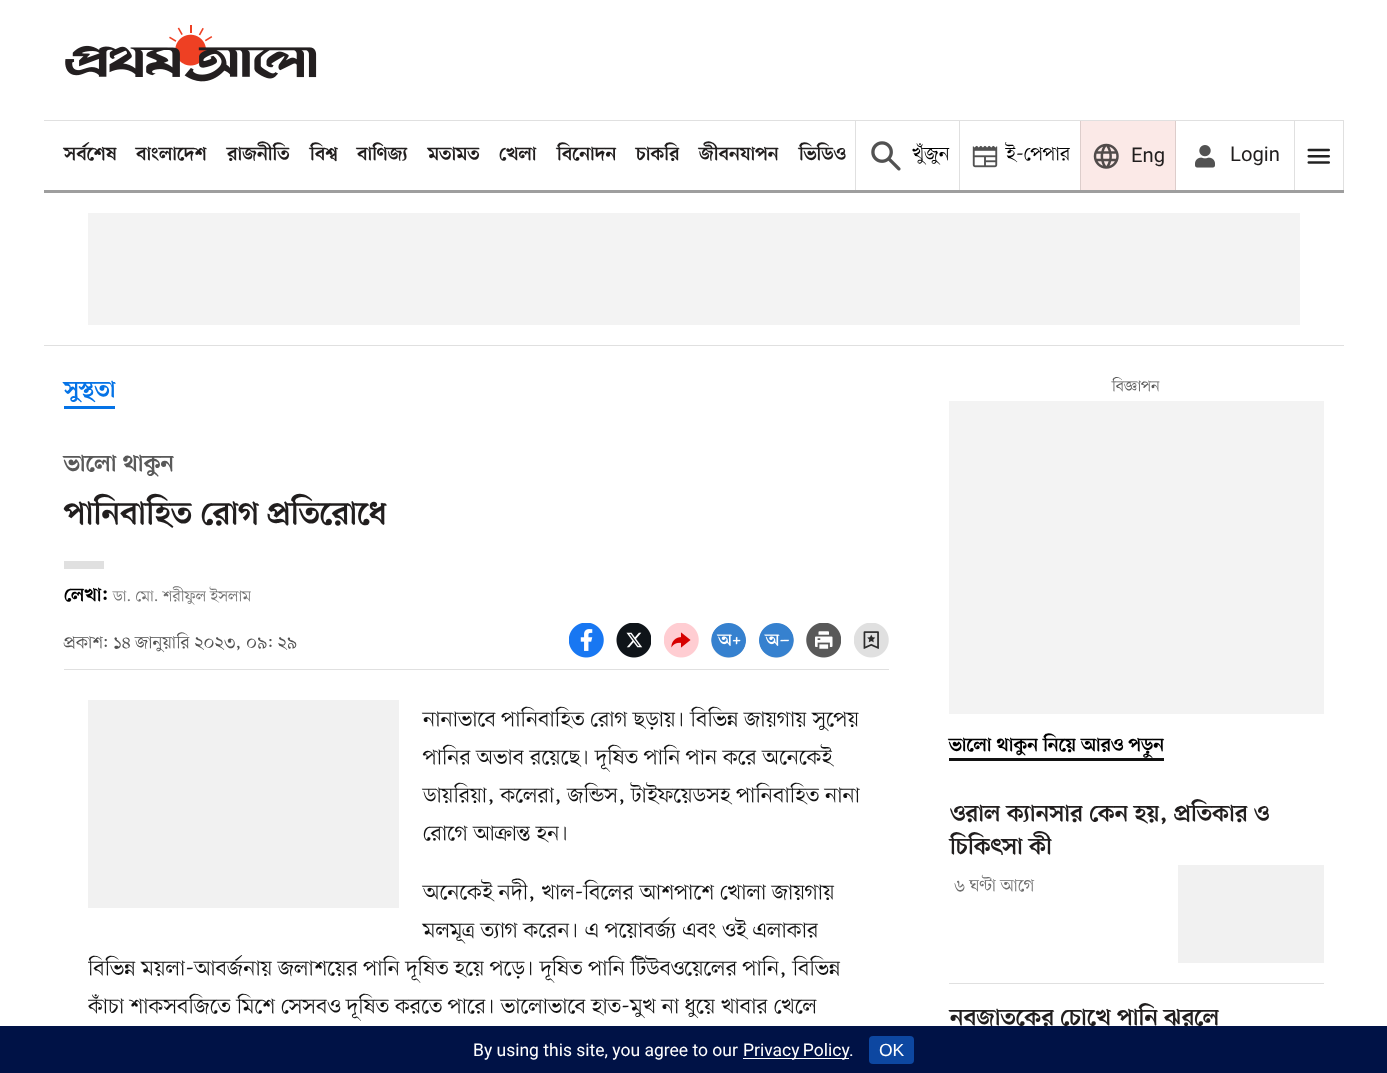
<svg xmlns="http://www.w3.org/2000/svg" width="1387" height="1073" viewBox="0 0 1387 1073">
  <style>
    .t1 { font: bold 20.25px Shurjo; fill: #211e1e; }
    .t2 { font: 20.25px Shurjo; fill: #000; }
    .t3 { font: 20.25px Roboto; fill: #211e1e; }
    .t4 { font: bold 25px Shurjo; fill: #0573e6; }
    .t5 { font: bold 25px Shurjo; fill: #595959; }
    .t6 { font: bold 34.5px Shurjo; fill: #211e1e; }
    .t7 { font: bold 20.25px Shurjo; fill: #000; }
    .t8 { font: 16.25px Shurjo; fill: #6f6f6f; }
    .t9 { font: 18.25px Shurjo; fill: #525252; }
    .t10 { font: 22.5px Shurjo; fill: #121212; }
    .t11 { font: 16.25px Shurjo; fill: #595959; }
    .t12 { font: bold 25px Shurjo; fill: #211e1e; }
    .t13 { font: 18.25px Shurjo; fill: #6f6f6f; }
    .t14 { font: 17.5px Roboto; fill: #fff; }
    .t15 { font: 17.5px Liberation Sans; fill: #fff; }
  </style>
  <defs>
    <clipPath id="clip1"><rect x="88" y="700" width="777" height="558"/></clipPath>
  </defs>
  <rect width="100%" height="100%" fill="#fff"/>
  <rect x="44" y="190" width="1300" height="3" fill="#9e9e9e"/>
  <image x="65" y="25" width="252" height="57" href="images/1.png"/>
  <rect x="44" y="120" width="1300" height="1" fill="#e0e0e0"/>
  <text x="64" y="160" class="t1">সর্বশেষ</text>
  <text x="136" y="160" class="t1">বাংলাদেশ</text>
  <text x="227" y="160" class="t1">রাজনীতি</text>
  <text x="310" y="160" class="t1">বিশ্ব</text>
  <text x="357" y="160" class="t1">বাণিজ্য</text>
  <text x="428" y="160" class="t1">মতামত</text>
  <text x="499" y="160" class="t1">খেলা</text>
  <text x="557" y="160" class="t1">বিনোদন</text>
  <text x="636" y="160" class="t1">চাকরি</text>
  <text x="699" y="160" class="t1">জীবনযাপন</text>
  <text x="799" y="160" class="t1">ভিডিও</text>
  <rect x="855" y="121" width="1" height="69" fill="#e0e0e0"/>
  <image x="871" y="141" width="30" height="30" href="images/2.png"/>
  <text x="912" y="160" class="t2">খুঁজুন</text>
  <rect x="959" y="121" width="1" height="69" fill="#e0e0e0"/>
  <image x="972" y="145" width="26" height="23" href="images/3.png"/>
  <text x="1006" y="160" class="t2">ই-পেপার</text>
  <rect x="1081" y="121" width="94" height="69" fill="#fbe9e7"/>
  <rect x="1175" y="121" width="1" height="69" fill="#ddcdcb"/>
  <rect x="1080" y="121" width="1" height="69" fill="#ddcdcb"/>
  <image x="1093" y="143" width="26" height="26" href="images/4.png"/>
  <text x="1131" y="162" class="t3">Eng</text>
  <image x="1195" y="145" width="20" height="23" href="images/5.png"/>
  <text x="1230" y="161" class="t3">Login</text>
  <rect x="1343" y="121" width="1" height="69" fill="#e0e0e0"/>
  <rect x="1294" y="121" width="1" height="69" fill="#e0e0e0"/>
  <image x="1307" y="148" width="23" height="16" href="images/6.png"/>
  <rect x="44" y="345" width="1300" height="1" fill="#e0e0e0"/>
  <rect x="88" y="213" width="1212" height="112" fill="#f3f3f3"/>
  <text x="64" y="397" class="t4">সুস্থতা</text>
  <rect x="64" y="406" width="51" height="3" fill="#0573e6"/>
  <text x="64" y="471" class="t5">ভালো থাকুন</text>
  <text x="64" y="524" class="t6">পানিবাহিত রোগ প্রতিরোধে</text>
  <rect x="64" y="669" width="825" height="1" fill="#e0e0e0"/>
  <rect x="64" y="561" width="40" height="8" fill="#e0e0e0"/>
  <text x="64" y="601" class="t7">লেখা:</text>
  <text x="113" y="601" class="t8">ডা. মো. শরীফুল ইসলাম</text>
  <text x="64" y="648" class="t9">প্রকাশ: ১৪ জানুয়ারি ২০২৩, ০৯: ২৯</text>
  <image x="569" y="623" width="35" height="35" href="images/7.png"/>
  <image x="616" y="623" width="35" height="35" href="images/8.png"/>
  <image x="664" y="623" width="35" height="35" href="images/9.png"/>
  <circle cx="728.5" cy="640.5" r="17.5" fill="#eee"/>
  <image x="711" y="623" width="35" height="35" href="images/10.png"/>
  <circle cx="776.5" cy="640.5" r="17.5" fill="#eee"/>
  <image x="759" y="623" width="35" height="35" href="images/11.png"/>
  <image x="806" y="623" width="35" height="35" href="images/12.png"/>
  <image x="854" y="623" width="35" height="35" href="images/13.png"/>
  <rect x="88" y="700" width="311" height="208" fill="#f1f1f1"/>
  <text x="423" y="726" class="t10">নানাভাবে পানিবাহিত রোগ ছড়ায়। বিভিন্ন জায়গায় সুপেয়</text>
  <text x="423" y="764" class="t10">পানির অভাব রয়েছে। দূষিত পানি পান করে অনেকেই</text>
  <text x="423" y="802" class="t10">ডায়রিয়া, কলেরা, জন্ডিস, টাইফয়েডসহ পানিবাহিত নানা</text>
  <text x="423" y="840" class="t10">রোগে আক্রান্ত হন।</text>
  <text x="423" y="899" class="t10">অনেকেই নদী, খাল-বিলের আশপাশে খোলা জায়গায়</text>
  <text x="423" y="937" class="t10">মলমূত্র ত্যাগ করেন। এ পয়োবর্জ্য এবং ওই এলাকার</text>
  <g clip-path="url(#clip1)">
    <text x="88" y="975" class="t10">বিভিন্ন ময়লা-আবর্জনায় জলাশয়ের পানি দূষিত হয়ে পড়ে। দূষিত পানি টিউবওয়েলের পানি, বিভিন্ন</text>
    <text x="88" y="1013" class="t10">কাঁচা শাকসবজিতে মিশে সেসবও দূষিত করতে পারে। ভালোভাবে হাত-মুখ না ধুয়ে খাবার খেলে</text>
  </g>
  <rect x="949" y="401" width="375" height="313" fill="#f3f3f3"/>
  <text x="1112" y="391" class="t11">বিজ্ঞাপন</text>
  <rect x="949" y="758" width="215" height="3" fill="#121212"/>
  <text x="949" y="751" class="t7">ভালো থাকুন নিয়ে আরও পড়ুন</text>
  <text x="950" y="821" class="t12">ওরাল ক্যানসার কেন হয়, প্রতিকার ও</text>
  <text x="950" y="854" class="t12">চিকিৎসা কী</text>
  <rect x="949" y="983" width="375" height="1" fill="#e0e0e0"/>
  <text x="954" y="891" class="t13">৬ ঘণ্টা আগে</text>
  <rect x="1178" y="865" width="146" height="98" fill="#f1f1f1"/>
  <text x="950" y="1025" class="t12">নবজাতকের চোখে পানি ঝরলে</text>
  <rect x="0" y="1026" width="1387" height="47" fill="#001246"/>
  <text x="473" y="1056" class="t14">By using this site, you agree to our</text>
  <rect x="743" y="1058" width="106" height="1" fill="#fff"/>
  <text x="743" y="1056" word-spacing="-1" class="t14">Privacy Policy</text>
  <text x="849" y="1056" class="t14">.</text>
  <rect x="869" y="1036" width="45" height="28" rx="4" fill="#0d47a1"/>
  <text x="879" y="1056" class="t15">OK</text>
</svg>
